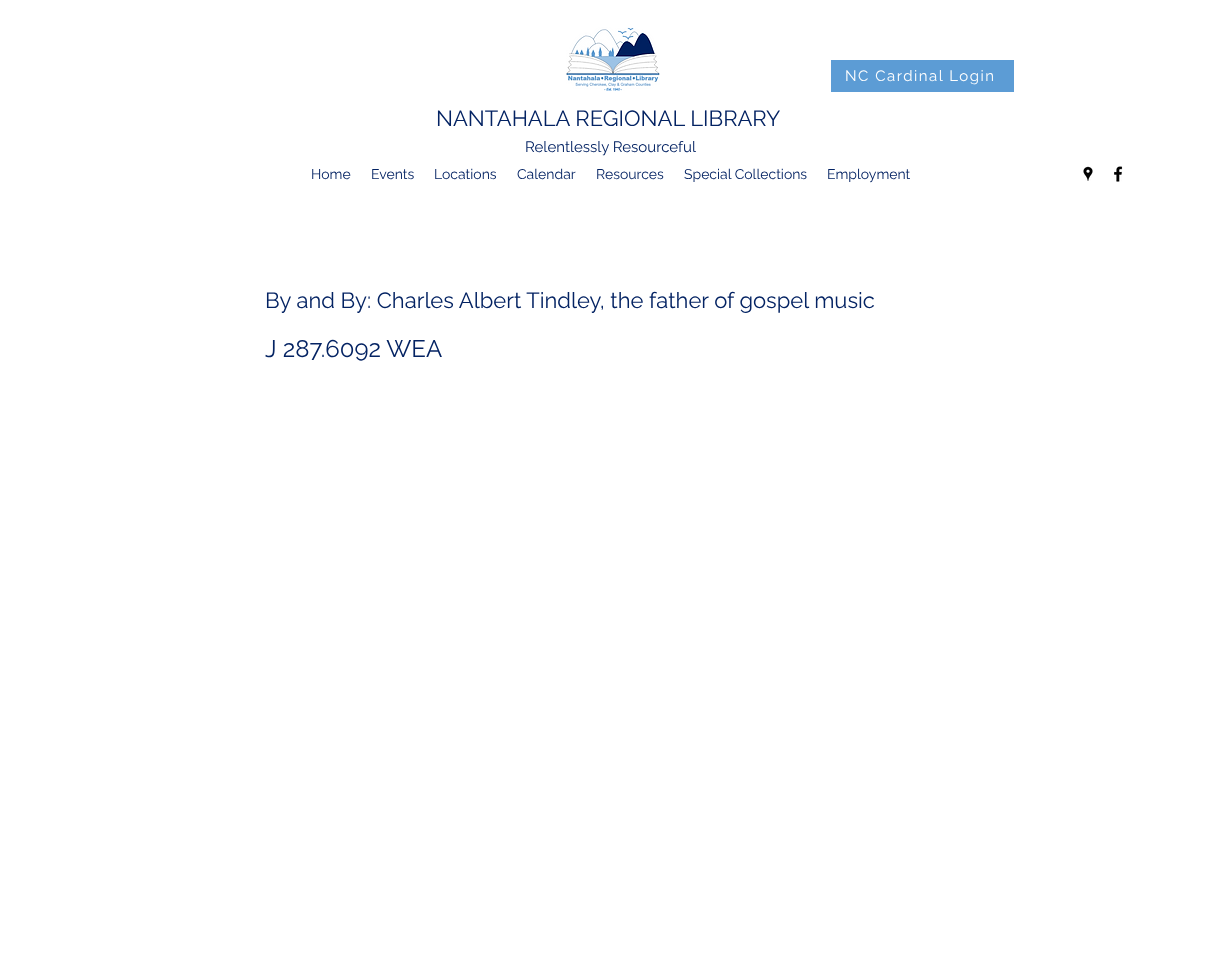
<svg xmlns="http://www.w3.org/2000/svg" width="1209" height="978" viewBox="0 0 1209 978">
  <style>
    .t1 { font: 15px Raleway; letter-spacing: 1.5px; fill: #fff; }
    .t2 { font: 22px Raleway; fill: #042363; }
    .t3 { font: 15px Raleway; fill: #042363; }
    .t4 { font: 14px Raleway; fill: #042363; }
    .t5 { font: 24px Raleway; fill: #042363; }
  </style>
  <rect width="100%" height="100%" fill="#fff"/>
  <image x="566" y="27" width="94" height="64" href="images/1.png"/>
  <rect x="831" y="60" width="183" height="32" fill="#5c9cd5"/>
  <text x="845" y="81" class="t1">NC Cardinal Login</text>
  <text x="436" y="126" class="t2">NANTAHALA REGIONAL LIBRARY</text>
  <text x="525" y="152" class="t3">Relentlessly Resourceful</text>
  <text x="311" y="179" class="t4">Home</text>
  <text x="371" y="179" class="t4">Events</text>
  <text x="434" y="179" class="t4">Locations</text>
  <text x="517" y="179" class="t4">Calendar</text>
  <text x="596" y="179" class="t4">Resources</text>
  <text x="684" y="179" class="t4">Special Collections</text>
  <text x="827" y="179" class="t4">Employment</text>
  <image x="1083" y="166" width="10" height="15" href="images/2.png"/>
  <image x="1114" y="166" width="9" height="16" href="images/3.png"/>
  <text x="265" y="308" class="t2">By and By: Charles Albert Tindley, the father of gospel music</text>
  <text x="265" y="357" class="t5">J 287.6092 WEA</text>
</svg>
